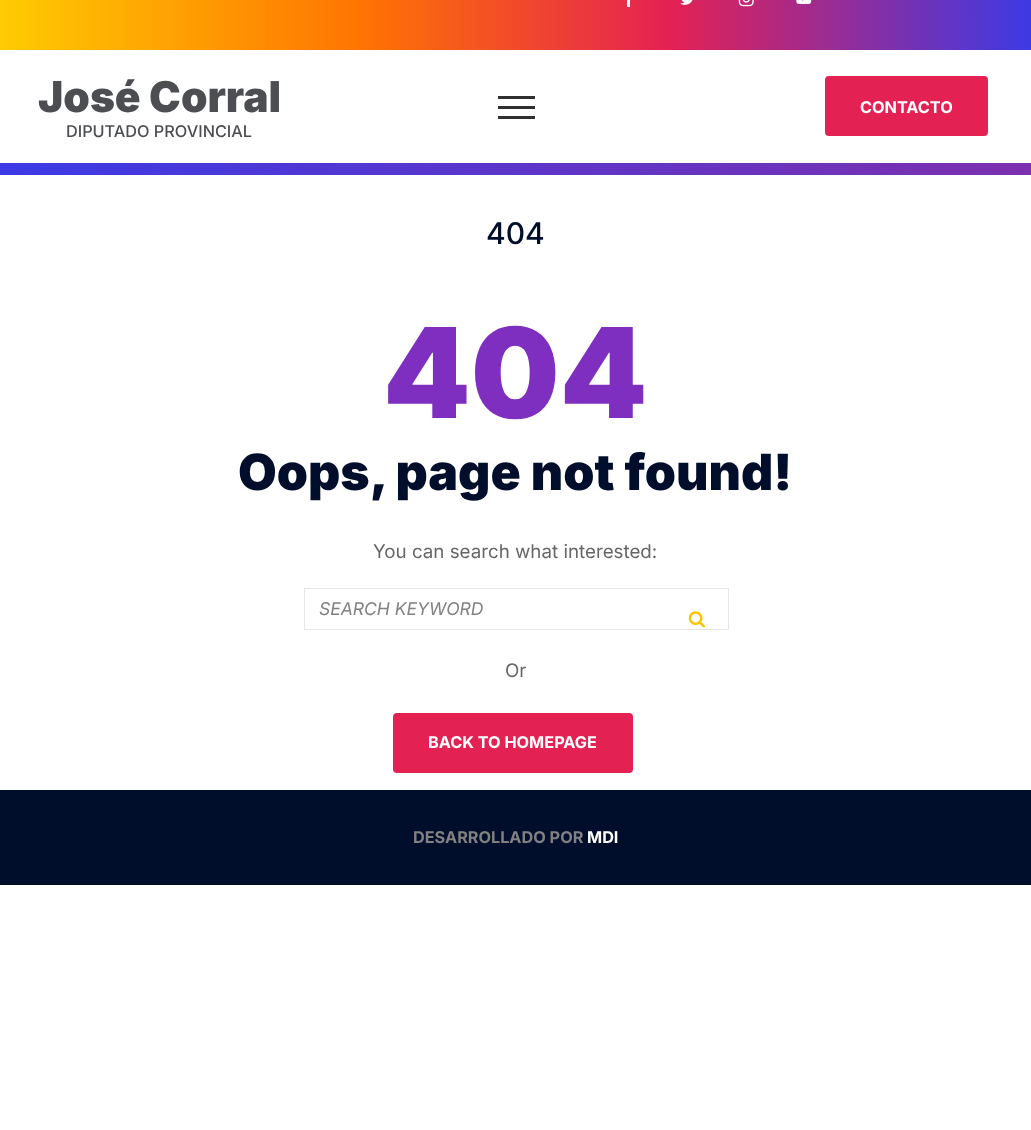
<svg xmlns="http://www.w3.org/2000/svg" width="1031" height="1130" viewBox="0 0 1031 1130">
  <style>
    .t1 { font: 900 42.5px Inter; fill: #4d4e52; }
    .t2 { font: 500 16.25px Inter; fill: #4d4e52; }
    .t3 { font: bold 16.25px Inter; fill: #fff; }
    .t4 { font: 500 30px Inter; fill: #000e2b; }
    .t5 { font: 900 125px Inter; fill: #7e2fbf; }
    .t6 { font: 900 50px Inter; fill: #000e2b; }
    .t7 { font: 18.75px Inter; fill: #666; }
    .t8 { font: italic 17.5px Inter; fill: #818181; }
    .t9 { font: bold 16.25px Inter; fill: #818181; }
  </style>
  <defs>
    <linearGradient id="g1" gradientUnits="userSpaceOnUse" x1="0" y1="13" x2="1031" y2="12"><stop offset="0" stop-color="#ffcb02"/><stop offset="0.35" stop-color="#ff7402"/><stop offset="0.65" stop-color="#e42153"/><stop offset="1" stop-color="#3c3ae5"/></linearGradient>
    <linearGradient id="g2" gradientUnits="userSpaceOnUse" x1="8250" y1="550" x2="0" y2="550"><stop offset="0" stop-color="#ffcb02"/><stop offset="0.33" stop-color="#ff7402"/><stop offset="0.67" stop-color="#e42153"/><stop offset="1" stop-color="#3c3ae5"/></linearGradient>
  </defs>
  <rect width="100%" height="100%" fill="#fff"/>
  <rect x="0" y="0" width="1031" height="50" fill="url(#g1)"/>
  <rect x="627" y="0" width="3" height="7" fill="#fff"/>
  <image x="680" y="0" width="13" height="5" href="images/1.png"/>
  <image x="738" y="0" width="16" height="7" href="images/2.png"/>
  <image x="796" y="0" width="16" height="4" href="images/3.png"/>
  <rect x="0" y="163" width="1031" height="12" fill="url(#g2)"/>
  <text x="38" y="112" class="t1">José Corral</text>
  <text x="66" y="137" class="t2">DIPUTADO PROVINCIAL</text>
  <rect x="498" y="106" width="37" height="3" fill="#303030"/>
  <rect x="498" y="96" width="37" height="3" fill="#303030"/>
  <rect x="498" y="116" width="37" height="3" fill="#303030"/>
  <rect x="825" y="76" width="163" height="60" rx="4" fill="#e42153"/>
  <text x="860" y="113" class="t3">CONTACTO</text>
  <text x="486" y="244" class="t4">404</text>
  <text x="383" y="418" class="t5">404</text>
  <text x="238" y="490" class="t6">Oops, page not found!</text>
  <text x="373" y="558" class="t7">You can search what interested:</text>
  <rect x="304.5" y="588.5" width="424" height="41" fill="none" stroke="#e6e6e6"/>
  <text x="319" y="615" class="t8">SEARCH KEYWORD</text>
  <image x="688" y="611" width="17" height="17" href="images/4.png"/>
  <text x="505" y="677" class="t7">Or</text>
  <rect x="393" y="713" width="240" height="60" rx="4" fill="#e42153"/>
  <text x="428" y="748" class="t3">BACK TO HOMEPAGE</text>
  <rect x="0" y="790" width="1031" height="95" fill="#000e2b"/>
  <text x="413" y="843" class="t9">DESARROLLADO POR</text>
  <text x="587" y="843" class="t3">MDI</text>
</svg>
